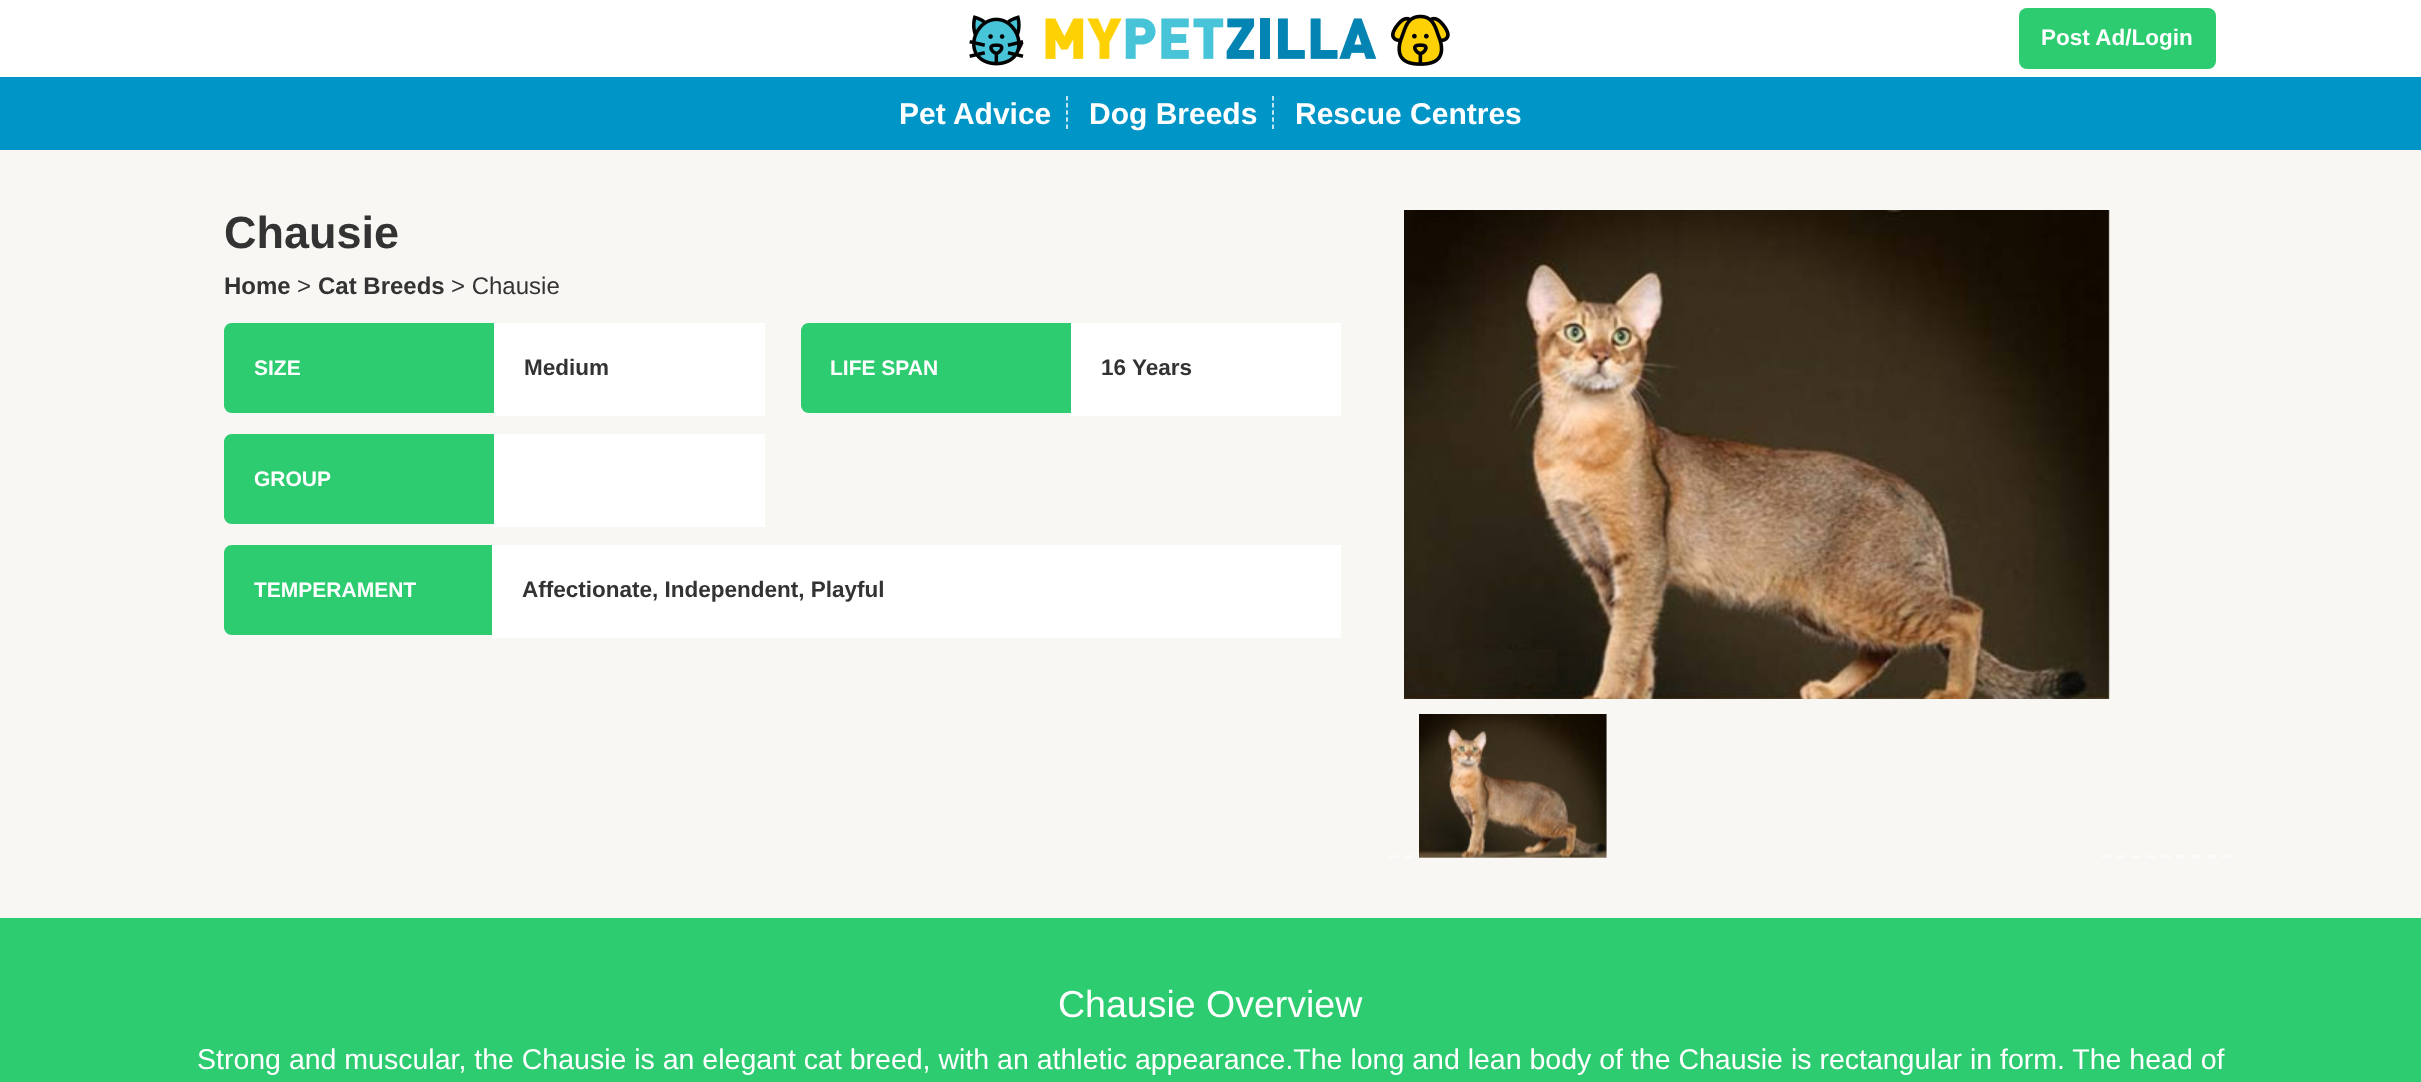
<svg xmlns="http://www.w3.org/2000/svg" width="2421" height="1082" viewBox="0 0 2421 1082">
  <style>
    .t1 { font: bold 22.5px Liberation Sans; fill: #fff; }
    .t2 { font: bold 30px Liberation Sans; fill: #fff; }
    .t3 { font: bold 45px Liberation Sans; fill: #333; }
    .t4 { font: bold 24px Liberation Sans; fill: #333; }
    .t5 { font: 24px Liberation Sans; fill: #333; }
    .t6 { font: bold 21px Liberation Sans; fill: #fff; }
    .t7 { font: bold 22.5px Liberation Sans; fill: #333; }
    .t8 { font: 37.5px Liberation Sans; fill: #fff; }
    .t9 { font: 28.5px Liberation Sans; fill: #fff; }
  </style>
  <rect width="100%" height="100%" fill="#fff"/>
  <image x="969" y="14" width="481" height="52" href="images/1.png"/>
  <rect x="2019" y="8" width="197" height="61" rx="8" fill="#2dcc70"/>
  <text x="2041" y="45" class="t1">Post Ad/Login</text>
  <rect x="0" y="77" width="2421" height="73" fill="#0095c7"/>
  <text x="899" y="124" class="t2">Pet Advice</text>
  <path d="M1067 96V129" fill="none" stroke="#fff" stroke-width="1.5" stroke-dasharray="4.5 2.62"/>
  <text x="1089" y="124" class="t2">Dog Breeds</text>
  <path d="M1273 96V129" fill="none" stroke="#fff" stroke-width="1.5" stroke-dasharray="4.5 2.62"/>
  <text x="1295" y="124" class="t2">Rescue Centres</text>
  <rect x="0" y="150" width="2421" height="768" fill="#f9f7f3"/>
  <text x="224" y="248" class="t3">Chausie</text>
  <text x="224" y="294" class="t4">Home</text>
  <text x="297" y="294" class="t5">&gt;</text>
  <text x="318" y="294" class="t4">Cat Breeds</text>
  <text x="451" y="294" class="t5">&gt; Chausie</text>
  <path d="M232 323H494V413H232C227.5 413 224 409.5 224 405V331C224 326.5 227.5 323 232 323Z" fill="#2dcc70"/>
  <text x="254" y="375" class="t6">SIZE</text>
  <rect x="494" y="323" width="271" height="93" fill="#fff"/>
  <text x="524" y="375" class="t7">Medium</text>
  <path d="M809 323H1071V413H809C804.5 413 801 409.5 801 405V331C801 326.5 804.5 323 809 323Z" fill="#2dcc70"/>
  <text x="830" y="375" class="t6">LIFE SPAN</text>
  <rect x="1071" y="323" width="270" height="93" fill="#fff"/>
  <text x="1101" y="375" class="t7">16</text>
  <text x="1132" y="375" class="t7">Years</text>
  <path d="M232 434H494V524H232C227.5 524 224 520.5 224 516V442C224 437.5 227.5 434 232 434Z" fill="#2dcc70"/>
  <text x="254" y="486" class="t6">GROUP</text>
  <rect x="494" y="434" width="271" height="93" fill="#fff"/>
  <path d="M232 545H492V635H232C227.5 635 224 631.5 224 627V553C224 548.5 227.5 545 232 545Z" fill="#2dcc70"/>
  <text x="254" y="597" class="t6">TEMPERAMENT</text>
  <rect x="492" y="545" width="849" height="93" fill="#fff"/>
  <text x="522" y="597" class="t7">Affectionate, Independent, Playful</text>
  <image x="1404" y="210" width="706" height="489" href="images/2.png"/>
  <path d="M1389 856.5H1518" fill="none" stroke="#fcfbf9" stroke-width="3" stroke-dasharray="9 6"/>
  <path d="M2101.5 856.5H2230.5" fill="none" stroke="#fcfbf9" stroke-width="3" stroke-dasharray="9 6"/>
  <image x="1419" y="714" width="188" height="144" href="images/3.png"/>
  <rect x="0" y="918" width="2421" height="164" fill="#2dcc70"/>
  <text x="1058" y="1017" class="t8">Chausie Overview</text>
  <text x="197" y="1069" class="t9">Strong and muscular, the Chausie is an elegant cat breed, with an athletic appearance.The long and lean body of the Chausie is rectangular in form. The head of</text>
</svg>
